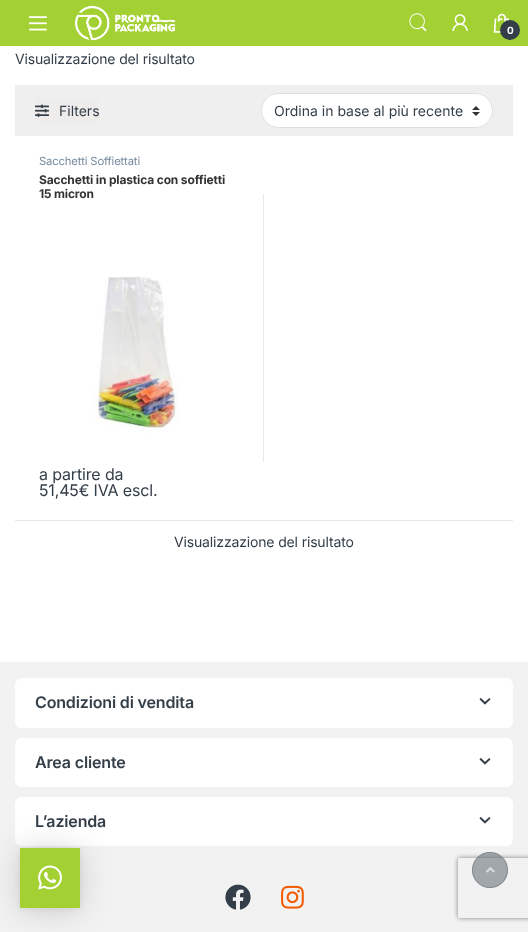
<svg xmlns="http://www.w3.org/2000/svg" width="528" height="932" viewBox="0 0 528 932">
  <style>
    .t1 { font: bold 10px Inter; letter-spacing: -0.15px; fill: #fff; }
    .t2 { font: 14px Inter; letter-spacing: -0.15px; fill: #333e48; }
    .t3 { font: 14px Inter; fill: #333e48; }
    .t4 { font: 11.25px Inter; letter-spacing: -0.15px; fill: #768b9e; }
    .t5 { font: bold 12px Inter; letter-spacing: -0.15px; fill: #333; }
    .t6 { font: 16px Inter; letter-spacing: -0.15px; fill: #333e48; }
    .t7 { font: 600 16px Inter; letter-spacing: -0.15px; fill: #333e48; }
  </style>
  <defs>
    <clipPath id="clip1"><path d="M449 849H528V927H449ZM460 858H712C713 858 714 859 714 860V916C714 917 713 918 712 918H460C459 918 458 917 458 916V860C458 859 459 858 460 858Z" clip-rule="evenodd"/></clipPath>
  </defs>
  <rect width="100%" height="100%" fill="#fff"/>
  <rect x="0" y="0" width="528" height="46" fill="#a3d133"/>
  <image x="29" y="16" width="18" height="15" href="images/1.png"/>
  <image x="75" y="6" width="100" height="35" href="images/2.png"/>
  <image x="409" y="13" width="18" height="19" href="images/3.png"/>
  <image x="452" y="14" width="16" height="18" href="images/4.png"/>
  <image x="493" y="13" width="17" height="20" href="images/5.png"/>
  <circle cx="510" cy="30" r="10" fill="#333e48"/>
  <text x="507" y="34" class="t1">0</text>
  <text x="15" y="64" class="t2">Visualizzazione del risultato</text>
  <rect x="15" y="85" width="498" height="51" fill="#efefef"/>
  <rect x="35" y="99" width="65" height="24" fill="#efecec"/>
  <image x="35" y="104" width="14" height="13" href="images/6.png"/>
  <text x="59" y="116" class="t3">Filters</text>
  <rect x="261" y="93" width="232" height="35" rx="17.5" fill="#fff"/>
  <image x="472" y="106" width="8" height="10" href="images/7.png"/>
  <rect x="261.5" y="93.5" width="231" height="34" rx="17" fill="none" stroke="#ddd"/>
  <text x="274" y="116" class="t3">Ordina in base al più recente</text>
  <text x="39" y="165" class="t4">Sacchetti Soffiettati</text>
  <text x="39" y="184" class="t5">Sacchetti in plastica con soffietti</text>
  <text x="39" y="198" class="t5">15 micron</text>
  <image x="92" y="276" width="87" height="157" href="images/8.png"/>
  <text x="39" y="480" class="t6">a partire da</text>
  <text x="39" y="496" class="t6">51,45€ IVA escl.</text>
  <rect x="263" y="194" width="1" height="268" fill="#eaeaea"/>
  <rect x="15" y="520" width="498" height="1" fill="#e7e7e7"/>
  <text x="174" y="547" class="t2">Visualizzazione del risultato</text>
  <rect x="0" y="662" width="528" height="270" fill="#f2f2f2"/>
  <rect x="15" y="678" width="498" height="50" rx="7" fill="#fff"/>
  <text x="35" y="708" class="t7">Condizioni di vendita</text>
  <image x="479" y="698" width="12" height="7" href="images/9.png"/>
  <rect x="15" y="738" width="498" height="49" rx="7" fill="#fff"/>
  <text x="35" y="768" class="t7">Area cliente</text>
  <image x="479" y="758" width="12" height="7" href="images/9.png"/>
  <rect x="15" y="797" width="498" height="49" rx="7" fill="#fff"/>
  <text x="35" y="827" class="t7">L’azienda</text>
  <image x="479" y="817" width="12" height="7" href="images/9.png"/>
  <image x="225" y="884" width="26" height="26" href="images/10.png"/>
  <image x="281" y="885" width="23" height="24" href="images/11.png"/>
  <rect x="20" y="850" width="60" height="60" fill="#00000029" filter="blur(16px)"/>
  <rect x="20" y="849" width="60" height="60" fill="#0000000f" filter="blur(3px)"/>
  <rect x="20" y="848" width="60" height="60" fill="#a3d133"/>
  <image x="38" y="865" width="24" height="25" href="images/12.png"/>
  <g clip-path="url(#clip1)">
    <rect x="458" y="858" width="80" height="60" rx="2" fill="#808080" filter="blur(2.5px)"/>
  </g>
  <circle cx="490" cy="870" r="18" fill="#6c757d99"/>
  <circle cx="490" cy="870" r="17.5" fill="none" stroke="#6c757d99"/>
  <image x="486" y="867" width="9" height="6" href="images/13.png"/>
</svg>
